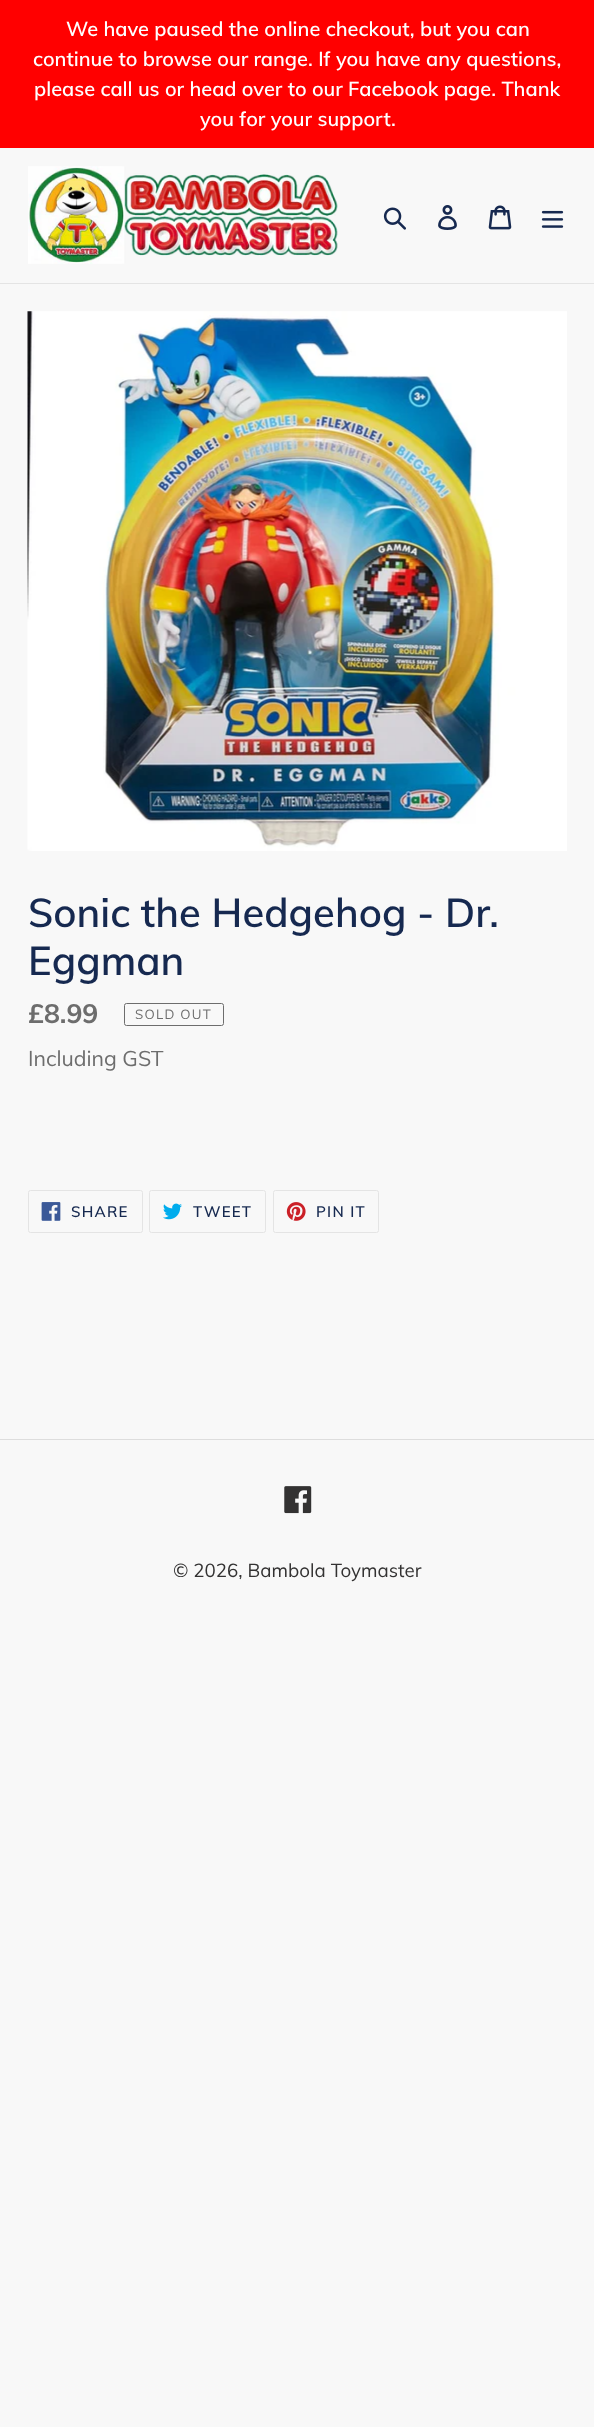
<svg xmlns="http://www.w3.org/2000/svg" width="594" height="2427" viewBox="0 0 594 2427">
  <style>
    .t1 { font: 600 20px Muli; fill: #fff; }
    .t2 { font: 600 40px Muli; fill: #162950; }
    .t3 { font: bold 26.5px Muli; fill: #6d6d6d; }
    .t4 { font: 13.25px Muli; letter-spacing: 1.25px; fill: #6d6d6d; }
    .t5 { font: 21.25px Muli; fill: #6d6d6d; }
    .t6 { font: 600 15px Muli; letter-spacing: 1.25px; fill: #162950; }
    .t7 { font: 18.75px Muli; fill: #333232; }
  </style>
  <rect width="100%" height="100%" fill="#f8f8f8"/>
  <rect x="0" y="0" width="594" height="148" fill="#f00"/>
  <text x="66" y="36" class="t1">We have paused the online checkout, but you can</text>
  <text x="33" y="66" class="t1">continue to browse our range. If you have any questions,</text>
  <text x="34" y="96" class="t1">please call us or head over to our Facebook page. Thank</text>
  <text x="200" y="126" class="t1">you for your support.</text>
  <rect x="0" y="283" width="594" height="1" fill="#e4e4e4"/>
  <image x="28" y="166" width="310" height="98" href="images/1.png"/>
  <image x="383" y="207" width="23" height="23" href="images/2.png"/>
  <image x="438" y="205" width="19" height="25" href="images/3.png"/>
  <image x="488" y="205" width="24" height="25" href="images/4.png"/>
  <image x="541" y="210" width="23" height="18" href="images/5.png"/>
  <image x="27" y="311" width="540" height="540" href="images/6.png"/>
  <text x="28" y="927" class="t2">Sonic the Hedgehog - Dr.</text>
  <text x="28" y="975" class="t2">Eggman</text>
  <text x="28" y="1023" class="t3">£8.99</text>
  <rect x="124.5" y="1003.5" width="99" height="22" rx="2" fill="none" stroke="#6d6d6d"/>
  <text x="135" y="1019" class="t4">SOLD OUT</text>
  <text x="28" y="1066" class="t5">Including GST</text>
  <rect x="28.5" y="1190.5" width="114" height="42" rx="2" fill="none" stroke="#e4e4e4"/>
  <image x="41" y="1202" width="20" height="19" href="images/7.png"/>
  <text x="71" y="1217" class="t6">SHARE</text>
  <rect x="149.5" y="1190.5" width="116" height="42" rx="2" fill="none" stroke="#e4e4e4"/>
  <image x="163" y="1203" width="19" height="17" href="images/8.png"/>
  <text x="193" y="1217" class="t6">TWEET</text>
  <rect x="273.5" y="1190.5" width="105" height="42" rx="2" fill="none" stroke="#e4e4e4"/>
  <image x="286" y="1202" width="20" height="19" href="images/9.png"/>
  <text x="316" y="1217" class="t6">PIN IT</text>
  <rect x="0" y="1439" width="594" height="1" fill="#ddd"/>
  <image x="284" y="1486" width="28" height="28" href="images/10.png"/>
  <text x="173" y="1577" class="t7">© 2026, Bambola Toymaster</text>
</svg>
